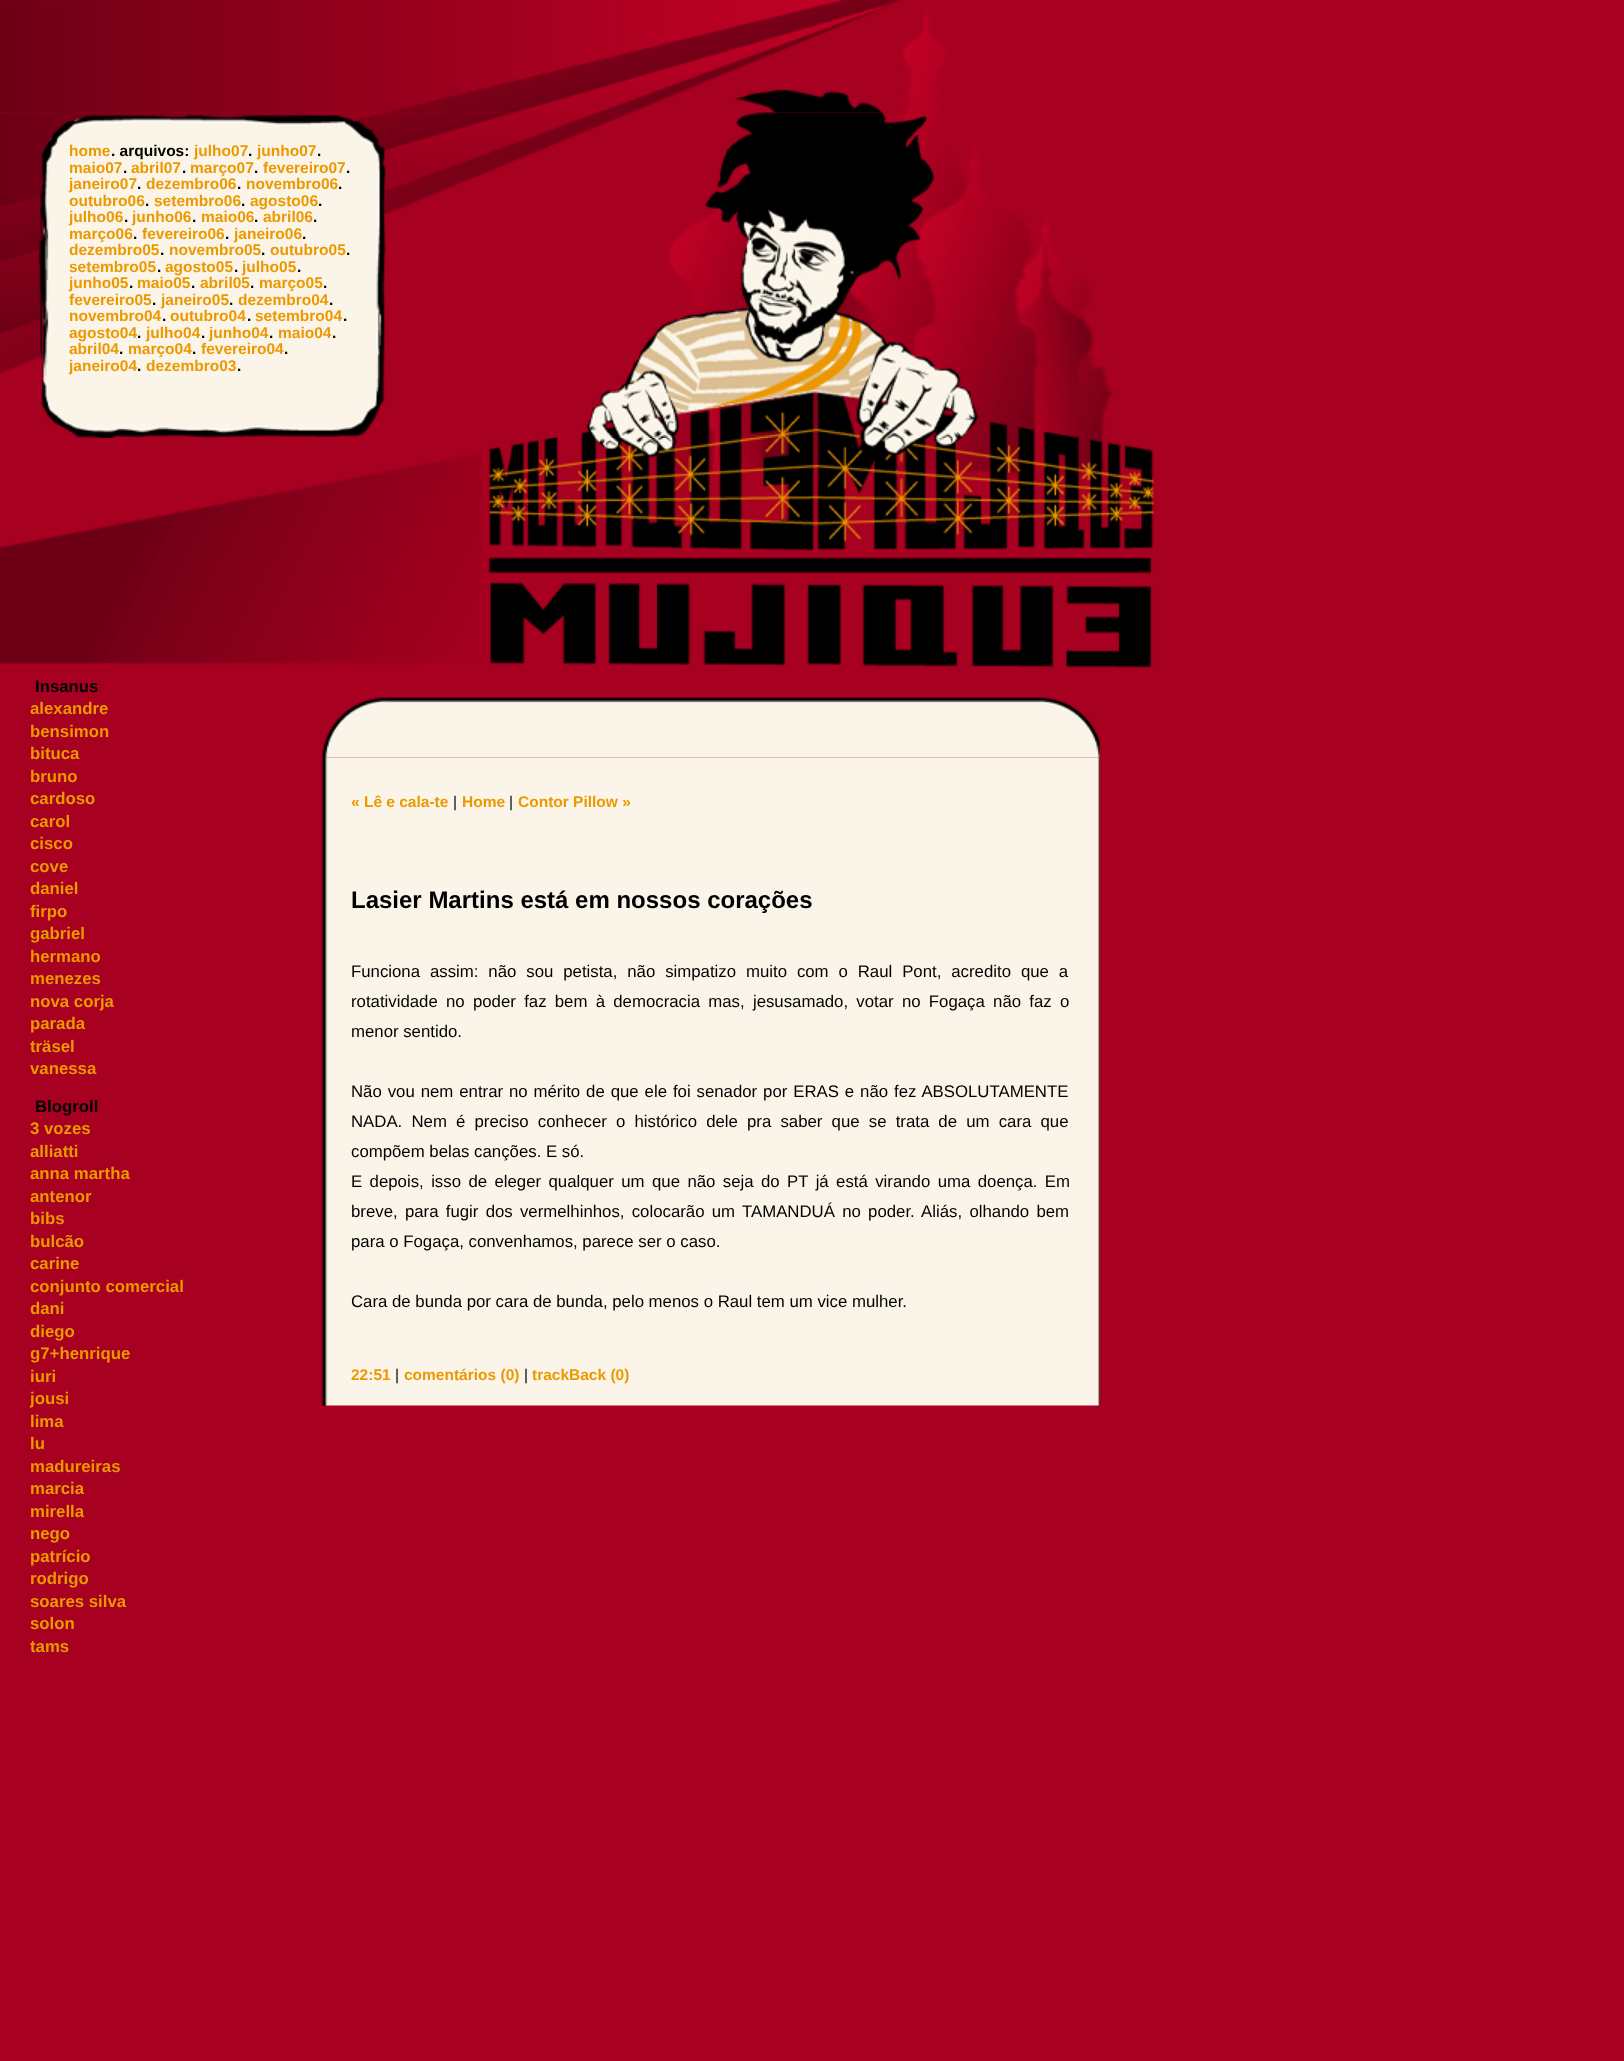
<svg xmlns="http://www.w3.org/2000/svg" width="1624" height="2061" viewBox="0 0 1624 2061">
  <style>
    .t1 { font: bold 15.5px Liberation Sans; fill: #ec9800; }
    .t2 { font: bold 15.5px Liberation Sans; fill: #000; }
    .t3 { font: bold 16.8px Liberation Sans; fill: #000; }
    .t4 { font: bold 16.8px Liberation Sans; fill: #ec9800; }
    .t5 { font: 15.5px Liberation Sans; fill: #000; }
    .t6 { font: bold 24px Liberation Sans; fill: #000; }
    .t7 { font: 16.8px Liberation Sans; fill: #000; }
  </style>
  <rect width="100%" height="100%" fill="#a70020"/>
  <image x="0" y="0" width="947" height="113" href="images/1.png"/>
  <image x="0" y="112" width="39" height="262" href="images/2.png"/>
  <image x="39" y="112" width="347" height="326" href="images/3.png"/>
  <text x="69" y="156" class="t1">home</text>
  <text x="111" y="156" class="t2">. arquivos:</text>
  <text x="194" y="156" class="t1">julho07</text>
  <text x="248" y="156" class="t2">.</text>
  <text x="257" y="156" class="t1">junho07</text>
  <text x="317" y="156" class="t2">.</text>
  <text x="69" y="173" class="t1">maio07</text>
  <text x="123" y="173" class="t2">.</text>
  <text x="131" y="173" class="t1">abril07</text>
  <text x="182" y="173" class="t2">.</text>
  <text x="190" y="173" class="t1">março07</text>
  <text x="254" y="173" class="t2">.</text>
  <text x="263" y="173" class="t1">fevereiro07</text>
  <text x="346" y="173" class="t2">.</text>
  <text x="69" y="189" class="t1">janeiro07</text>
  <text x="137" y="189" class="t2">.</text>
  <text x="146" y="189" class="t1">dezembro06</text>
  <text x="237" y="189" class="t2">.</text>
  <text x="246" y="189" class="t1">novembro06</text>
  <text x="338" y="189" class="t2">.</text>
  <text x="69" y="206" class="t1">outubro06</text>
  <text x="145" y="206" class="t2">.</text>
  <text x="154" y="206" class="t1">setembro06</text>
  <text x="241" y="206" class="t2">.</text>
  <text x="250" y="206" class="t1">agosto06</text>
  <text x="318" y="206" class="t2">.</text>
  <text x="69" y="222" class="t1">julho06</text>
  <text x="124" y="222" class="t2">.</text>
  <text x="132" y="222" class="t1">junho06</text>
  <text x="192" y="222" class="t2">.</text>
  <text x="201" y="222" class="t1">maio06</text>
  <text x="254" y="222" class="t2">.</text>
  <text x="263" y="222" class="t1">abril06</text>
  <text x="313" y="222" class="t2">.</text>
  <text x="69" y="239" class="t1">março06</text>
  <text x="133" y="239" class="t2">.</text>
  <text x="142" y="239" class="t1">fevereiro06</text>
  <text x="225" y="239" class="t2">.</text>
  <text x="234" y="239" class="t1">janeiro06</text>
  <text x="302" y="239" class="t2">.</text>
  <text x="69" y="255" class="t1">dezembro05</text>
  <text x="160" y="255" class="t2">.</text>
  <text x="169" y="255" class="t1">novembro05</text>
  <text x="261" y="255" class="t2">.</text>
  <text x="270" y="255" class="t1">outubro05</text>
  <text x="346" y="255" class="t2">.</text>
  <text x="69" y="272" class="t1">setembro05</text>
  <text x="157" y="272" class="t2">.</text>
  <text x="165" y="272" class="t1">agosto05</text>
  <text x="234" y="272" class="t2">.</text>
  <text x="242" y="272" class="t1">julho05</text>
  <text x="297" y="272" class="t2">.</text>
  <text x="69" y="288" class="t1">junho05</text>
  <text x="129" y="288" class="t2">.</text>
  <text x="137" y="288" class="t1">maio05</text>
  <text x="191" y="288" class="t2">.</text>
  <text x="200" y="288" class="t1">abril05</text>
  <text x="250" y="288" class="t2">.</text>
  <text x="259" y="288" class="t1">março05</text>
  <text x="323" y="288" class="t2">.</text>
  <text x="69" y="305" class="t1">fevereiro05</text>
  <text x="152" y="305" class="t2">.</text>
  <text x="161" y="305" class="t1">janeiro05</text>
  <text x="229" y="305" class="t2">.</text>
  <text x="238" y="305" class="t1">dezembro04</text>
  <text x="329" y="305" class="t2">.</text>
  <text x="69" y="321" class="t1">novembro04</text>
  <text x="162" y="321" class="t2">.</text>
  <text x="170" y="321" class="t1">outubro04</text>
  <text x="247" y="321" class="t2">.</text>
  <text x="255" y="321" class="t1">setembro04</text>
  <text x="343" y="321" class="t2">.</text>
  <text x="69" y="338" class="t1">agosto04</text>
  <text x="137" y="338" class="t2">.</text>
  <text x="146" y="338" class="t1">julho04</text>
  <text x="201" y="338" class="t2">.</text>
  <text x="209" y="338" class="t1">junho04</text>
  <text x="269" y="338" class="t2">.</text>
  <text x="278" y="338" class="t1">maio04</text>
  <text x="332" y="338" class="t2">.</text>
  <text x="69" y="354" class="t1">abril04</text>
  <text x="119" y="354" class="t2">.</text>
  <text x="128" y="354" class="t1">março04</text>
  <text x="192" y="354" class="t2">.</text>
  <text x="201" y="354" class="t1">fevereiro04</text>
  <text x="284" y="354" class="t2">.</text>
  <text x="69" y="371" class="t1">janeiro04</text>
  <text x="137" y="371" class="t2">.</text>
  <text x="146" y="371" class="t1">dezembro03</text>
  <text x="237" y="371" class="t2">.</text>
  <image x="385" y="112" width="729" height="326" href="images/4.png"/>
  <image x="0" y="438" width="1154" height="230" href="images/5.png"/>
  <text x="35" y="692" class="t3">Insanus</text>
  <text x="30" y="714" class="t4">alexandre</text>
  <text x="30" y="737" class="t4">bensimon</text>
  <text x="30" y="759" class="t4">bituca</text>
  <text x="30" y="782" class="t4">bruno</text>
  <text x="30" y="804" class="t4">cardoso</text>
  <text x="30" y="827" class="t4">carol</text>
  <text x="30" y="849" class="t4">cisco</text>
  <text x="30" y="872" class="t4">cove</text>
  <text x="30" y="894" class="t4">daniel</text>
  <text x="30" y="917" class="t4">firpo</text>
  <text x="30" y="939" class="t4">gabriel</text>
  <text x="30" y="962" class="t4">hermano</text>
  <text x="30" y="984" class="t4">menezes</text>
  <text x="30" y="1007" class="t4">nova corja</text>
  <text x="30" y="1029" class="t4">parada</text>
  <text x="30" y="1052" class="t4">träsel</text>
  <text x="30" y="1074" class="t4">vanessa</text>
  <text x="35" y="1112" class="t3">Blogroll</text>
  <text x="30" y="1134" class="t4">3 vozes</text>
  <text x="30" y="1157" class="t4">alliatti</text>
  <text x="30" y="1179" class="t4">anna martha</text>
  <text x="30" y="1202" class="t4">antenor</text>
  <text x="30" y="1224" class="t4">bibs</text>
  <text x="30" y="1247" class="t4">bulcão</text>
  <text x="30" y="1269" class="t4">carine</text>
  <text x="30" y="1292" class="t4">conjunto comercial</text>
  <text x="30" y="1314" class="t4">dani</text>
  <text x="30" y="1337" class="t4">diego</text>
  <text x="30" y="1359" class="t4">g7+henrique</text>
  <text x="30" y="1382" class="t4">iuri</text>
  <text x="30" y="1404" class="t4">jousi</text>
  <text x="30" y="1427" class="t4">lima</text>
  <text x="30" y="1449" class="t4">lu</text>
  <text x="30" y="1472" class="t4">madureiras</text>
  <text x="30" y="1494" class="t4">marcia</text>
  <text x="30" y="1517" class="t4">mirella</text>
  <text x="30" y="1539" class="t4">nego</text>
  <text x="30" y="1562" class="t4">patrício</text>
  <text x="30" y="1584" class="t4">rodrigo</text>
  <text x="30" y="1607" class="t4">soares silva</text>
  <text x="30" y="1629" class="t4">solon</text>
  <text x="30" y="1652" class="t4">tams</text>
  <image x="321" y="697" width="779" height="61" href="images/6.png"/>
  <image x="321" y="757" width="779" height="649" href="images/7.png"/>
  <text x="351" y="807" class="t1">« Lê e cala-te</text>
  <text x="453" y="807" class="t5">|</text>
  <text x="462" y="807" class="t1">Home</text>
  <text x="509" y="807" class="t5">|</text>
  <text x="518" y="807" class="t1">Contor Pillow »</text>
  <text x="351" y="908" class="t6">Lasier Martins está em nossos corações</text>
  <text x="351" y="977" word-spacing="5.25" class="t7">Funciona assim: não sou petista, não simpatizo muito com o Raul Pont, acredito que a</text>
  <text x="351" y="1007" word-spacing="3.6" class="t7">rotatividade no poder faz bem à democracia mas, jesusamado, votar no Fogaça não faz o</text>
  <text x="351" y="1037" class="t7">menor sentido.</text>
  <text x="351" y="1097" word-spacing="1.25" class="t7">Não vou nem entrar no mérito de que ele foi senador por ERAS e não fez ABSOLUTAMENTE</text>
  <text x="351" y="1127" word-spacing="4.5" class="t7">NADA. Nem é preciso conhecer o histórico dele pra saber que se trata de um cara que</text>
  <text x="351" y="1157" class="t7">compõem belas canções. E só.</text>
  <text x="351" y="1187" word-spacing="2.75" class="t7">E depois, isso de eleger qualquer um que não seja do PT já está virando uma doença. Em</text>
  <text x="351" y="1217" word-spacing="2.6" class="t7">breve, para fugir dos vermelhinhos, colocarão um TAMANDUÁ no poder. Aliás, olhando bem</text>
  <text x="351" y="1247" class="t7">para o Fogaça, convenhamos, parece ser o caso.</text>
  <text x="351" y="1307" class="t7">Cara de bunda por cara de bunda, pelo menos o Raul tem um vice mulher.</text>
  <text x="351" y="1380" class="t1">22:51</text>
  <text x="395" y="1380" class="t5">|</text>
  <text x="404" y="1380" class="t1">comentários (0)</text>
  <text x="524" y="1380" class="t5">|</text>
  <text x="532" y="1380" class="t1">trackBack (0)</text>
</svg>
